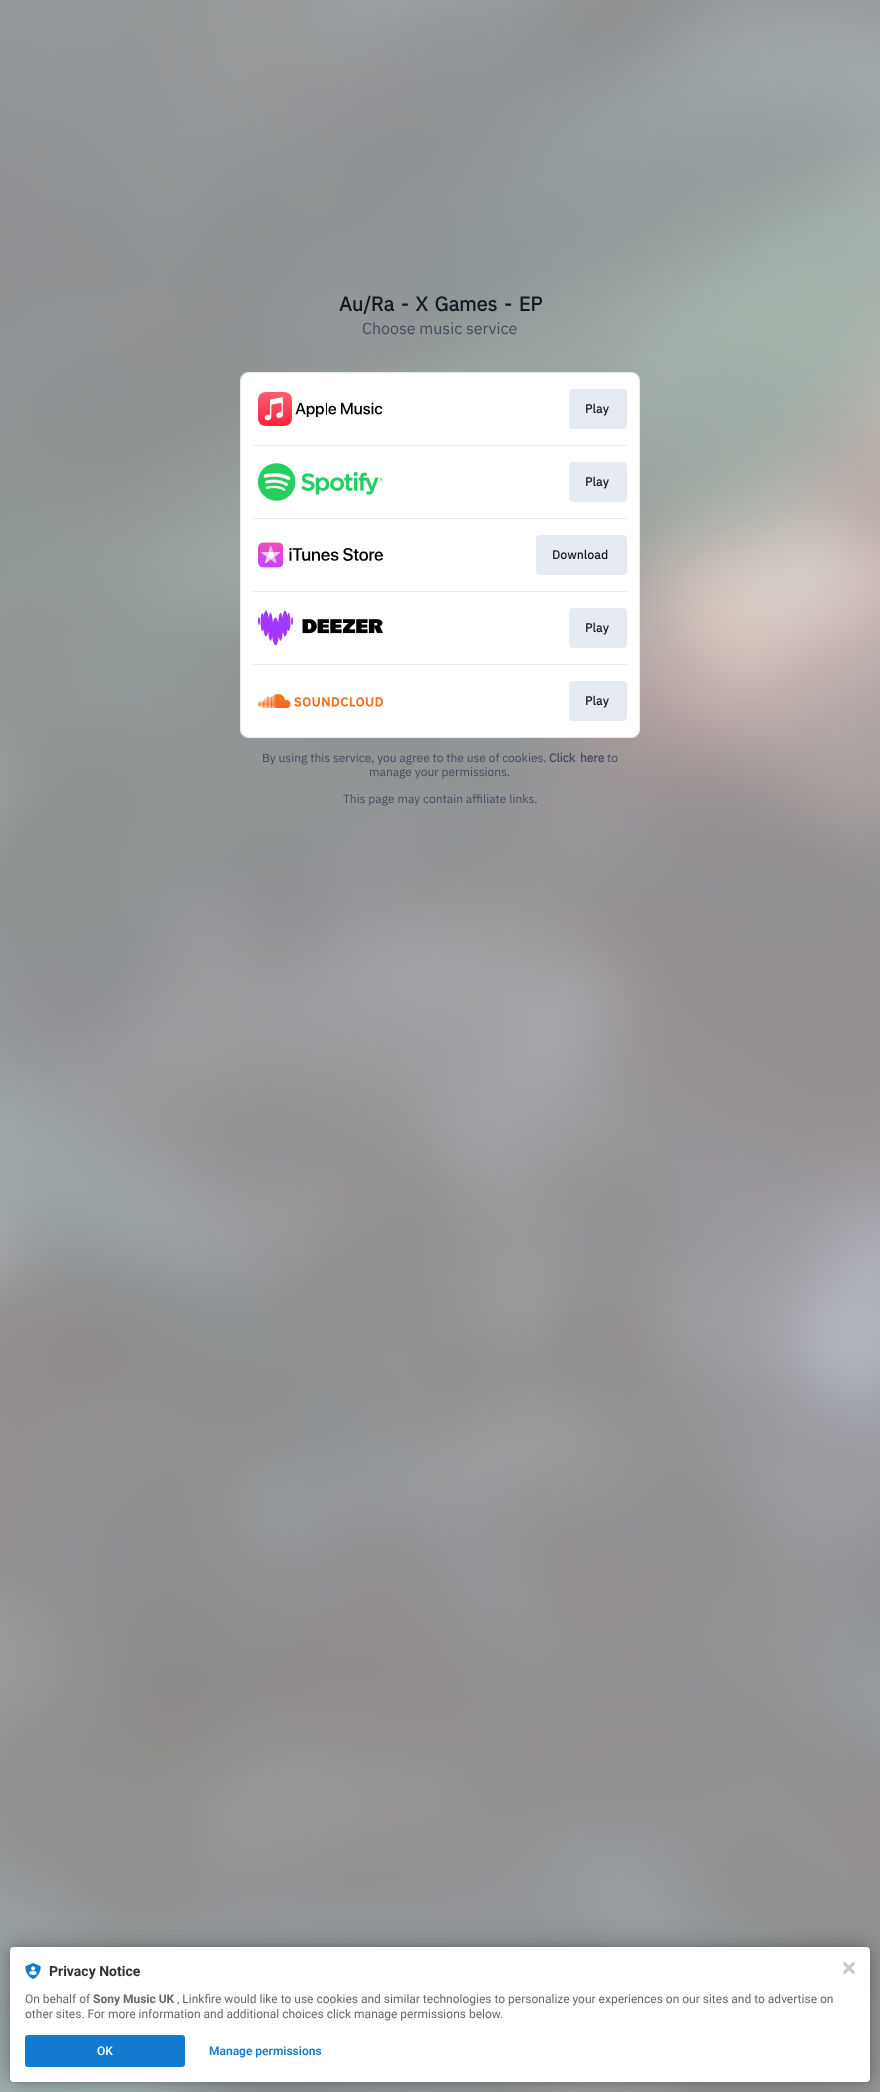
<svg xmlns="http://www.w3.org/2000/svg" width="880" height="2092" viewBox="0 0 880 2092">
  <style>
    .t1 { font: bold 20px IBM Plex Sans; fill: #181721; }
    .t2 { font: 16px IBM Plex Sans; fill: #454b5f; }
    .t3 { font: bold 12px IBM Plex Sans; letter-spacing: 0.25px; fill: #181721; }
    .t4 { font: 12px IBM Plex Sans; fill: #454b5f; }
    .t5 { font: bold 12px IBM Plex Sans; fill: #454b5f; }
    .t6 { font: bold 14px Roboto; fill: #323232; }
    .t7 { font: 12px Roboto; fill: #686868; }
    .t8 { font: bold 12px Roboto; fill: #686868; }
    .t9 { font: 500 12px Roboto; fill: #fff; }
    .t10 { font: 600 12px Roboto; fill: #137bcf; }
  </style>
  <rect width="100%" height="100%" fill="#fff"/>
  <image x="0" y="0" width="880" height="2092" href="images/1.png"/>
  <text x="339" y="311" word-spacing="2" class="t1">Au/Ra - X Games - EP</text>
  <text x="362" y="334" class="t2">Choose music service</text>
  <rect x="240.5" y="372.5" width="399" height="365" rx="7.5" fill="none" stroke="#e6eaf2"/>
  <rect x="241" y="373" width="398" height="364" rx="7" fill="#fff"/>
  <image x="258" y="392" width="125" height="34" href="images/2.png"/>
  <rect x="569" y="389" width="58" height="40" rx="4" fill="#e6eaf2"/>
  <text x="585" y="413" class="t3">Play</text>
  <rect x="253" y="445" width="374" height="1" fill="#e6eaf2"/>
  <image x="258" y="463" width="125" height="38" href="images/3.png"/>
  <rect x="569" y="462" width="58" height="40" rx="4" fill="#e6eaf2"/>
  <text x="585" y="486" class="t3">Play</text>
  <rect x="253" y="518" width="374" height="1" fill="#e6eaf2"/>
  <image x="258" y="542" width="125" height="26" href="images/4.png"/>
  <rect x="536" y="535" width="91" height="40" rx="4" fill="#e6eaf2"/>
  <text x="552" y="559" class="t3">Download</text>
  <rect x="253" y="591" width="374" height="1" fill="#e6eaf2"/>
  <image x="258" y="610" width="125" height="36" href="images/5.png"/>
  <rect x="569" y="608" width="58" height="40" rx="4" fill="#e6eaf2"/>
  <text x="585" y="632" class="t3">Play</text>
  <rect x="253" y="664" width="374" height="1" fill="#e6eaf2"/>
  <image x="258" y="694" width="125" height="14" href="images/6.png"/>
  <rect x="569" y="681" width="58" height="40" rx="4" fill="#e6eaf2"/>
  <text x="585" y="705" class="t3">Play</text>
  <text x="262" y="762" class="t4">By using this service, you agree to the use of cookies.</text>
  <text x="549" y="762" word-spacing="2" class="t5">Click here</text>
  <text x="607" y="762" class="t4">to</text>
  <text x="369" y="776" class="t4">manage your permissions.</text>
  <text x="343" y="803" class="t4">This page may contain affiliate links.</text>
  <rect x="10" y="1947" width="860" height="135" rx="4" fill="#0000001f" filter="blur(2px)"/>
  <rect x="10" y="1947" width="860" height="135" rx="4" fill="#0000004d" filter="blur(12px)"/>
  <rect x="10" y="1947" width="860" height="135" rx="4" fill="#fff"/>
  <image x="25" y="1963" width="16" height="16" href="images/7.png"/>
  <text x="49" y="1976" class="t6">Privacy Notice</text>
  <text x="25" y="2003" class="t7">On behalf of</text>
  <text x="93" y="2003" class="t8">Sony Music UK</text>
  <text x="177" y="2003" class="t7">, Linkfire would like to use cookies and similar technologies to personalize your experiences on our sites and to advertise on</text>
  <text x="25" y="2018" class="t7">other sites. For more information and additional choices click manage permissions below.</text>
  <rect x="25" y="2035" width="160" height="32" rx="3" fill="#137bcf"/>
  <text x="97" y="2055" class="t9">OK</text>
  <text x="209" y="2055" class="t10">Manage permissions</text>
  <image x="843" y="1962" width="12" height="12" href="images/8.png"/>
</svg>
